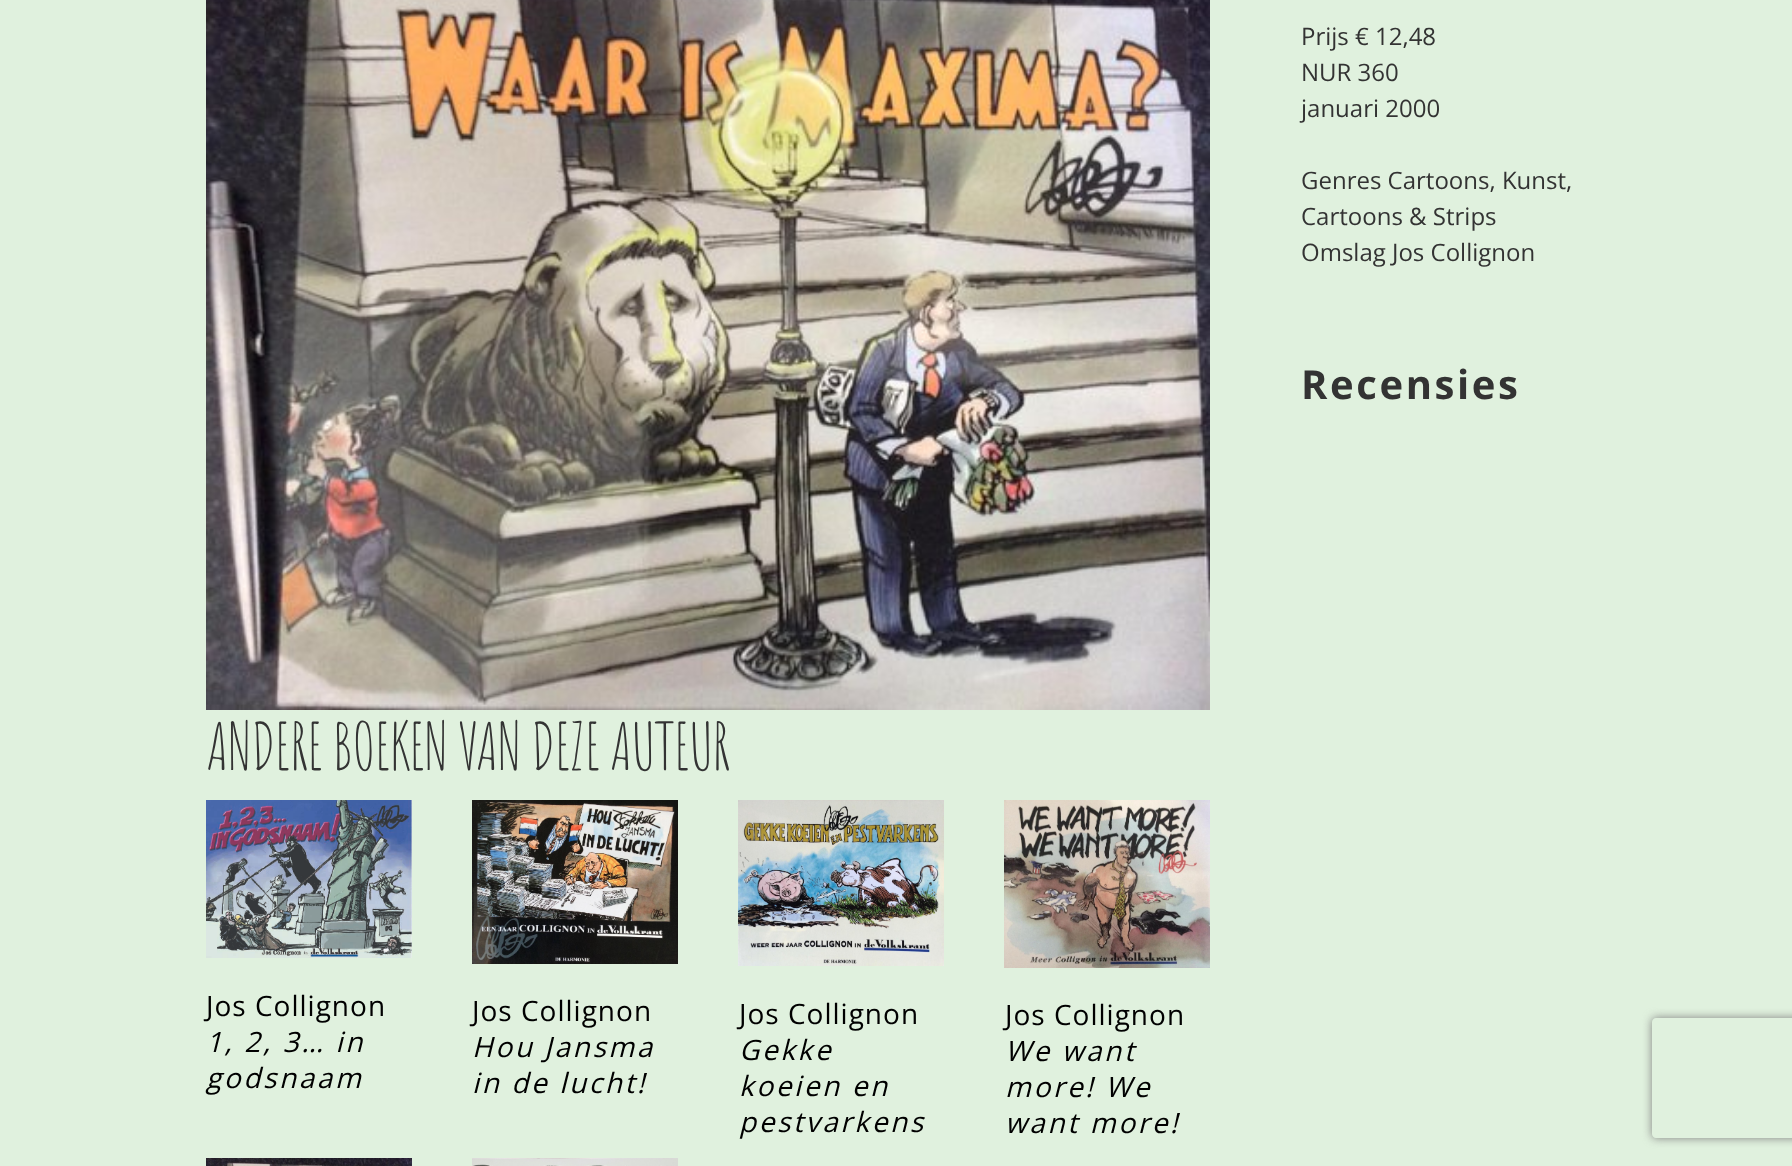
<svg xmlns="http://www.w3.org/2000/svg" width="1792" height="1166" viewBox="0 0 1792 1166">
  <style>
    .t1 { font: 24px Open Sans; fill: #333; }
    .t2 { font: bold 40px Open Sans; letter-spacing: 2.6px; fill: #333; }
    .t3 { font: 64.5px Amatic SC; letter-spacing: -1px; fill: #333; }
    .t4 { font: 28px Open Sans; letter-spacing: 1px; fill: #000; }
    .t5 { font: italic 28px Open Sans; letter-spacing: 2.6px; fill: #000; }
  </style>
  <defs>
    <clipPath id="clip1"><path d="M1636 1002H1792V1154H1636ZM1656 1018H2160C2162 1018 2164 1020 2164 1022V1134C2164 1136 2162 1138 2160 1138H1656C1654 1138 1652 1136 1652 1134V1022C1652 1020 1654 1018 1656 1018Z" clip-rule="evenodd"/></clipPath>
  </defs>
  <rect width="100%" height="100%" fill="#e0f1de"/>
  <text x="1301" y="45" class="t1">Prijs € 12,48</text>
  <text x="1301" y="81" class="t1">NUR 360</text>
  <text x="1301" y="117" class="t1">januari 2000</text>
  <text x="1301" y="189" class="t1">Genres Cartoons, Kunst,</text>
  <text x="1301" y="225" class="t1">Cartoons &amp; Strips</text>
  <text x="1301" y="261" class="t1">Omslag Jos Collignon</text>
  <text x="1301" y="399" class="t2">Recensies</text>
  <image x="206" y="0" width="1004" height="710" href="images/1.png"/>
  <text x="206" y="770" class="t3">ANDERE BOEKEN VAN DEZE AUTEUR</text>
  <image x="206" y="800" width="206" height="158" href="images/2.png"/>
  <text x="206" y="1016" class="t4">Jos Collignon</text>
  <text x="206" y="1052" class="t5">1, 2, 3… in</text>
  <text x="206" y="1088" class="t5">godsnaam</text>
  <image x="472" y="800" width="206" height="164" href="images/3.png"/>
  <text x="472" y="1021" class="t4">Jos Collignon</text>
  <text x="472" y="1057" class="t5">Hou Jansma</text>
  <text x="472" y="1093" class="t5">in de lucht!</text>
  <image x="738" y="800" width="206" height="166" href="images/4.png"/>
  <text x="739" y="1024" class="t4">Jos Collignon</text>
  <text x="739" y="1060" class="t5">Gekke</text>
  <text x="739" y="1096" class="t5">koeien en</text>
  <text x="739" y="1132" class="t5">pestvarkens</text>
  <image x="1004" y="800" width="206" height="168" href="images/5.png"/>
  <text x="1005" y="1025" class="t4">Jos Collignon</text>
  <text x="1005" y="1061" class="t5">We want</text>
  <text x="1005" y="1097" class="t5">more! We</text>
  <text x="1005" y="1133" class="t5">want more!</text>
  <image x="206" y="1158" width="206" height="8" href="images/6.png"/>
  <image x="472" y="1158" width="206" height="8" href="images/7.png"/>
  <g clip-path="url(#clip1)">
    <rect x="1652" y="1018" width="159" height="120" rx="4" fill="#808080" filter="blur(5px)"/>
  </g>
</svg>
